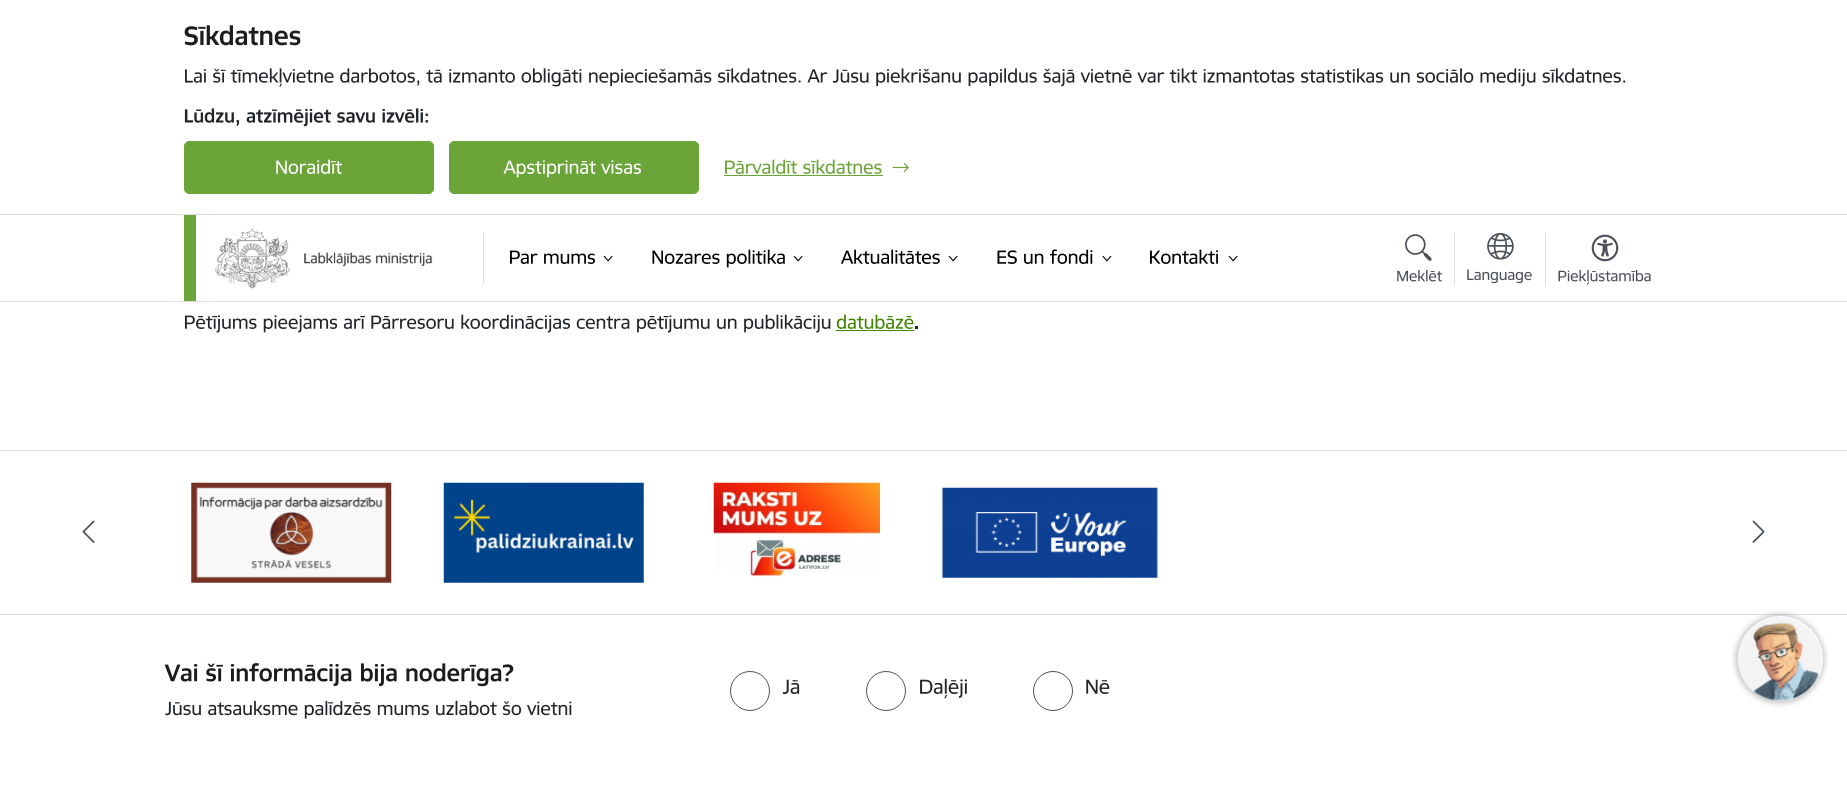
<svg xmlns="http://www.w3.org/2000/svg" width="1847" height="786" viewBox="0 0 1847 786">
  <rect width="100%" height="100%" fill="#fff"/>
  <rect x="0" y="214" width="1847" height="1" fill="#dbdee4"/>
  <image x="184" y="25" width="117" height="21" href="images/1.png"/>
  <image x="185" y="68" width="1441" height="19" href="images/2.png"/>
  <image x="184" y="108" width="245" height="19" href="images/3.png"/>
  <rect x="184.5" y="141.5" width="249" height="52" rx="4.5" fill="#6ba539" stroke="#6ba539"/>
  <image x="276" y="159" width="67" height="15" href="images/4.png"/>
  <rect x="449.5" y="141.5" width="249" height="52" rx="4.5" fill="#6ba539" stroke="#6ba539"/>
  <image x="503" y="160" width="138" height="18" href="images/5.png"/>
  <image x="725" y="159" width="157" height="15" href="images/6.png"/>
  <image x="892" y="162" width="17" height="11" href="images/7.png"/>
  <rect x="724" y="175" width="159" height="1" fill="#6ba539"/>
  <rect x="0" y="301" width="1847" height="1" fill="#dbdee4"/>
  <rect x="165" y="301" width="1519" height="1" fill="#fff"/>
  <rect x="165" y="301" width="1519" height="1" fill="#dbdee4"/>
  <rect x="184" y="215" width="12" height="86" fill="#6ba539"/>
  <image x="215" y="228" width="218" height="61" href="images/8.png"/>
  <rect x="483" y="233" width="1" height="51" fill="#dbdee4"/>
  <image x="510" y="250" width="85" height="14" href="images/9.png"/>
  <image x="603" y="255" width="10" height="7" href="images/10.png"/>
  <image x="652" y="249" width="133" height="19" href="images/11.png"/>
  <image x="793" y="255" width="10" height="7" href="images/10.png"/>
  <image x="841" y="249" width="99" height="15" href="images/12.png"/>
  <image x="948" y="255" width="10" height="7" href="images/10.png"/>
  <image x="997" y="249" width="96" height="15" href="images/13.png"/>
  <image x="1102" y="255" width="10" height="7" href="images/14.png"/>
  <image x="1150" y="249" width="69" height="15" href="images/15.png"/>
  <image x="1228" y="255" width="10" height="7" href="images/10.png"/>
  <image x="1405" y="234" width="27" height="27" href="images/16.png"/>
  <image x="1397" y="270" width="46" height="12" href="images/17.png"/>
  <rect x="1454" y="233" width="1" height="52" fill="#dbdee4"/>
  <image x="1487" y="233" width="27" height="27" href="images/18.png"/>
  <image x="1467" y="269" width="65" height="15" href="images/19.png"/>
  <rect x="1545" y="233" width="1" height="53" fill="#dbdee4"/>
  <image x="1591" y="234" width="28" height="28" href="images/20.png"/>
  <image x="1558" y="270" width="93" height="15" href="images/21.png"/>
  <image x="185" y="314" width="646" height="19" href="images/22.png"/>
  <image x="836" y="314" width="78" height="15" href="images/23.png"/>
  <rect x="915" y="326" width="3" height="3" fill="#212529"/>
  <rect x="836" y="330" width="78" height="1" fill="#3f8603"/>
  <rect x="0" y="450" width="1847" height="1" fill="#dbdee4"/>
  <image x="82" y="520" width="13" height="23" href="images/24.png"/>
  <image x="191" y="482" width="201" height="101" href="images/25.png"/>
  <image x="443" y="482" width="201" height="101" href="images/26.png"/>
  <image x="713" y="482" width="167" height="95" href="images/27.png"/>
  <image x="942" y="487" width="216" height="91" href="images/28.png"/>
  <image x="1752" y="520" width="13" height="23" href="images/29.png"/>
  <rect x="0" y="614" width="1847" height="1" fill="#dbdee4"/>
  <rect x="1735" y="614" width="90" height="90" rx="45" fill="#00000033" filter="blur(2.5px)"/>
  <circle cx="1780.5" cy="658.5" r="42.5" fill="#fff"/>
  <image x="1738" y="617" width="84" height="85" href="images/30.png"/>
  <image x="164" y="663" width="350" height="24" href="images/31.png"/>
  <image x="165" y="700" width="407" height="19" href="images/32.png"/>
  <circle cx="750" cy="691" r="19.5" fill="none" stroke="#4c5059"/>
  <image x="782" y="679" width="18" height="15" href="images/33.png"/>
  <circle cx="886" cy="691" r="19.5" fill="none" stroke="#4c5059"/>
  <image x="920" y="678" width="47" height="21" href="images/34.png"/>
  <circle cx="1053" cy="691" r="19.5" fill="none" stroke="#4c5059"/>
  <image x="1086" y="679" width="24" height="15" href="images/35.png"/>
</svg>
